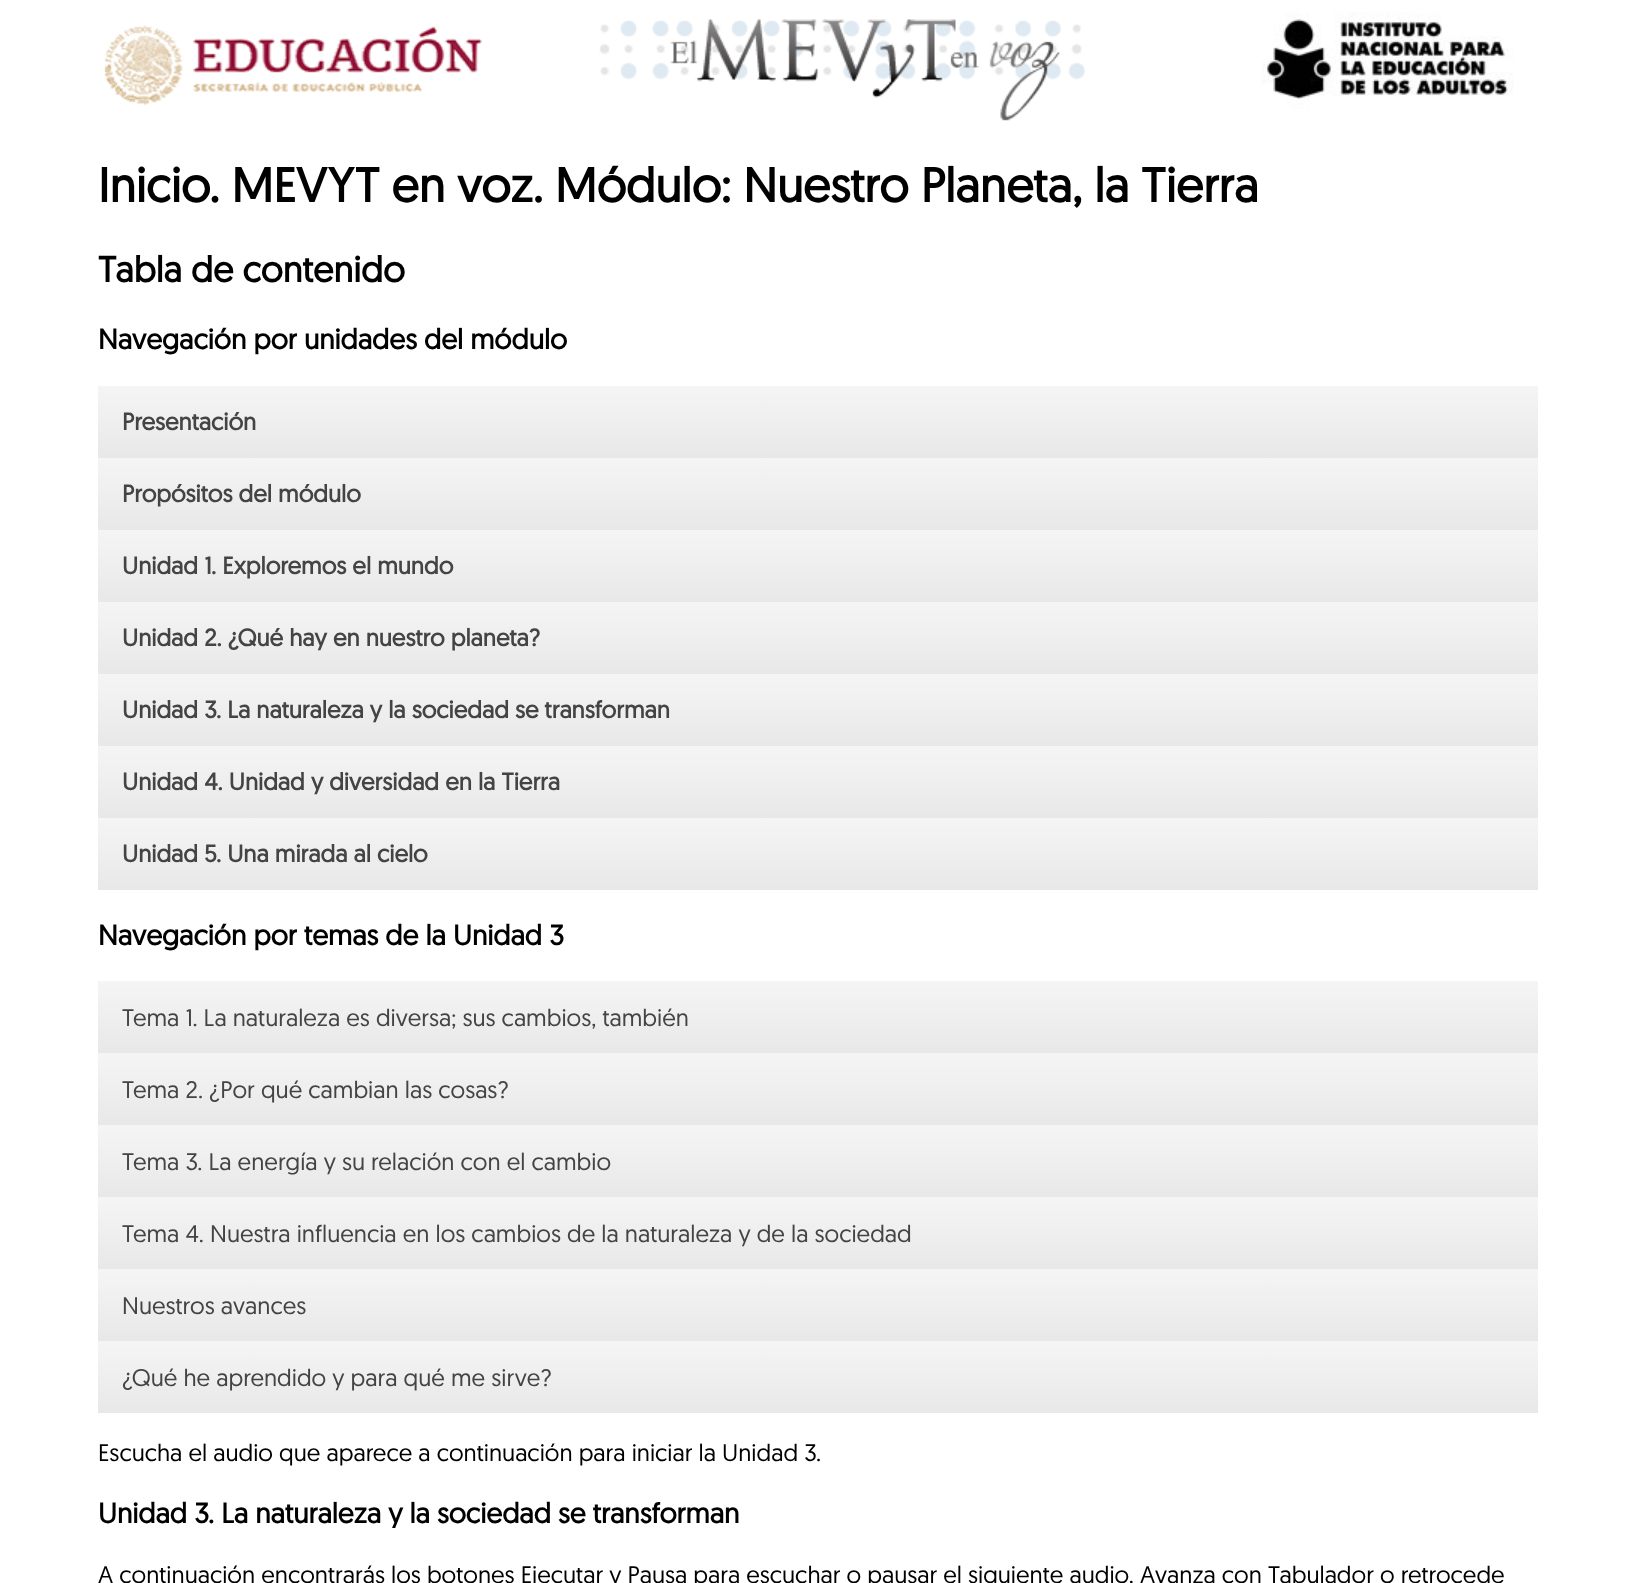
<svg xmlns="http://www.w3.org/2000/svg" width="1634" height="1583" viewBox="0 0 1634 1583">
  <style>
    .t1 { font: bold 48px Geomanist; fill: #000; }
    .t2 { font: bold 36px Geomanist; fill: #000; }
    .t3 { font: bold 28.1px Geomanist; fill: #000; }
    .t4 { font: bold 24px Geomanist; fill: #444; }
    .t5 { font: 24px Geomanist; fill: #444; }
    .t6 { font: 24px Geomanist; fill: #000; }
  </style>
  <defs>
    <linearGradient id="g1" gradientUnits="userSpaceOnUse" x1="818" y1="385" x2="818" y2="458"><stop offset="0" stop-color="#f5f5f5"/><stop offset="1" stop-color="#e8e8e8"/></linearGradient>
    <linearGradient id="g2" gradientUnits="userSpaceOnUse" x1="818" y1="457" x2="818" y2="530"><stop offset="0" stop-color="#f5f5f5"/><stop offset="1" stop-color="#e8e8e8"/></linearGradient>
    <linearGradient id="g3" gradientUnits="userSpaceOnUse" x1="818" y1="529" x2="818" y2="602"><stop offset="0" stop-color="#f5f5f5"/><stop offset="1" stop-color="#e8e8e8"/></linearGradient>
    <linearGradient id="g4" gradientUnits="userSpaceOnUse" x1="818" y1="601" x2="818" y2="674"><stop offset="0" stop-color="#f5f5f5"/><stop offset="1" stop-color="#e8e8e8"/></linearGradient>
    <linearGradient id="g5" gradientUnits="userSpaceOnUse" x1="818" y1="673" x2="818" y2="746"><stop offset="0" stop-color="#f5f5f5"/><stop offset="1" stop-color="#e8e8e8"/></linearGradient>
    <linearGradient id="g6" gradientUnits="userSpaceOnUse" x1="818" y1="745" x2="818" y2="818"><stop offset="0" stop-color="#f5f5f5"/><stop offset="1" stop-color="#e8e8e8"/></linearGradient>
    <linearGradient id="g7" gradientUnits="userSpaceOnUse" x1="818" y1="817" x2="818" y2="890"><stop offset="0" stop-color="#f5f5f5"/><stop offset="1" stop-color="#e8e8e8"/></linearGradient>
    <linearGradient id="g8" gradientUnits="userSpaceOnUse" x1="818" y1="981" x2="818" y2="1053"><stop offset="0" stop-color="#f5f5f5"/><stop offset="1" stop-color="#e8e8e8"/></linearGradient>
    <linearGradient id="g9" gradientUnits="userSpaceOnUse" x1="818" y1="1053" x2="818" y2="1125"><stop offset="0" stop-color="#f5f5f5"/><stop offset="1" stop-color="#e8e8e8"/></linearGradient>
    <linearGradient id="g10" gradientUnits="userSpaceOnUse" x1="818" y1="1125" x2="818" y2="1197"><stop offset="0" stop-color="#f5f5f5"/><stop offset="1" stop-color="#e8e8e8"/></linearGradient>
    <linearGradient id="g11" gradientUnits="userSpaceOnUse" x1="818" y1="1197" x2="818" y2="1269"><stop offset="0" stop-color="#f5f5f5"/><stop offset="1" stop-color="#e8e8e8"/></linearGradient>
    <linearGradient id="g12" gradientUnits="userSpaceOnUse" x1="818" y1="1269" x2="818" y2="1341"><stop offset="0" stop-color="#f5f5f5"/><stop offset="1" stop-color="#e8e8e8"/></linearGradient>
    <linearGradient id="g13" gradientUnits="userSpaceOnUse" x1="818" y1="1341" x2="818" y2="1413"><stop offset="0" stop-color="#f5f5f5"/><stop offset="1" stop-color="#e8e8e8"/></linearGradient>
  </defs>
  <rect width="100%" height="100%" fill="#fff"/>
  <image x="104" y="12" width="1410" height="109" href="images/1.png"/>
  <text x="98" y="202" class="t1">Inicio. MEVYT en voz. Módulo: Nuestro Planeta, la Tierra</text>
  <text x="98" y="282" class="t2">Tabla de contenido</text>
  <text x="98" y="349" class="t3">Navegación por unidades del módulo</text>
  <rect x="98" y="386" width="1440" height="72" fill="url(#g1)"/>
  <text x="122" y="430" class="t4">Presentación</text>
  <rect x="98" y="458" width="1440" height="72" fill="url(#g2)"/>
  <text x="122" y="502" class="t4">Propósitos del módulo</text>
  <rect x="98" y="530" width="1440" height="72" fill="url(#g3)"/>
  <text x="122" y="574" class="t4">Unidad 1. Exploremos el mundo</text>
  <rect x="98" y="602" width="1440" height="72" fill="url(#g4)"/>
  <text x="122" y="646" class="t4">Unidad 2. ¿Qué hay en nuestro planeta?</text>
  <rect x="98" y="674" width="1440" height="72" fill="url(#g5)"/>
  <text x="122" y="718" class="t4">Unidad 3. La naturaleza y la sociedad se transforman</text>
  <rect x="98" y="746" width="1440" height="72" fill="url(#g6)"/>
  <text x="122" y="790" class="t4">Unidad 4. Unidad y diversidad en la Tierra</text>
  <rect x="98" y="818" width="1440" height="72" fill="url(#g7)"/>
  <text x="122" y="862" class="t4">Unidad 5. Una mirada al cielo</text>
  <text x="98" y="945" class="t3">Navegación por temas de la Unidad 3</text>
  <rect x="98" y="981" width="1440" height="72" fill="url(#g8)"/>
  <text x="122" y="1026" class="t5">Tema 1. La naturaleza es diversa; sus cambios, también</text>
  <rect x="98" y="1053" width="1440" height="72" fill="url(#g9)"/>
  <text x="122" y="1098" class="t5">Tema 2. ¿Por qué cambian las cosas?</text>
  <rect x="98" y="1125" width="1440" height="72" fill="url(#g10)"/>
  <text x="122" y="1170" class="t5">Tema 3. La energía y su relación con el cambio</text>
  <rect x="98" y="1197" width="1440" height="72" fill="url(#g11)"/>
  <text x="122" y="1242" class="t5">Tema 4. Nuestra influencia en los cambios de la naturaleza y de la sociedad</text>
  <rect x="98" y="1269" width="1440" height="72" fill="url(#g12)"/>
  <text x="122" y="1314" class="t5">Nuestros avances</text>
  <rect x="98" y="1341" width="1440" height="72" fill="url(#g13)"/>
  <text x="122" y="1386" class="t5">¿Qué he aprendido y para qué me sirve?</text>
  <text x="98" y="1461" class="t6">Escucha el audio que aparece a continuación para iniciar la Unidad 3.</text>
  <text x="98" y="1523" class="t3">Unidad 3. La naturaleza y la sociedad se transforman</text>
  <text x="98" y="1583" class="t6">A continuación encontrarás los botones Ejecutar y Pausa para escuchar o pausar el siguiente audio. Avanza con Tabulador o retrocede</text>
</svg>
